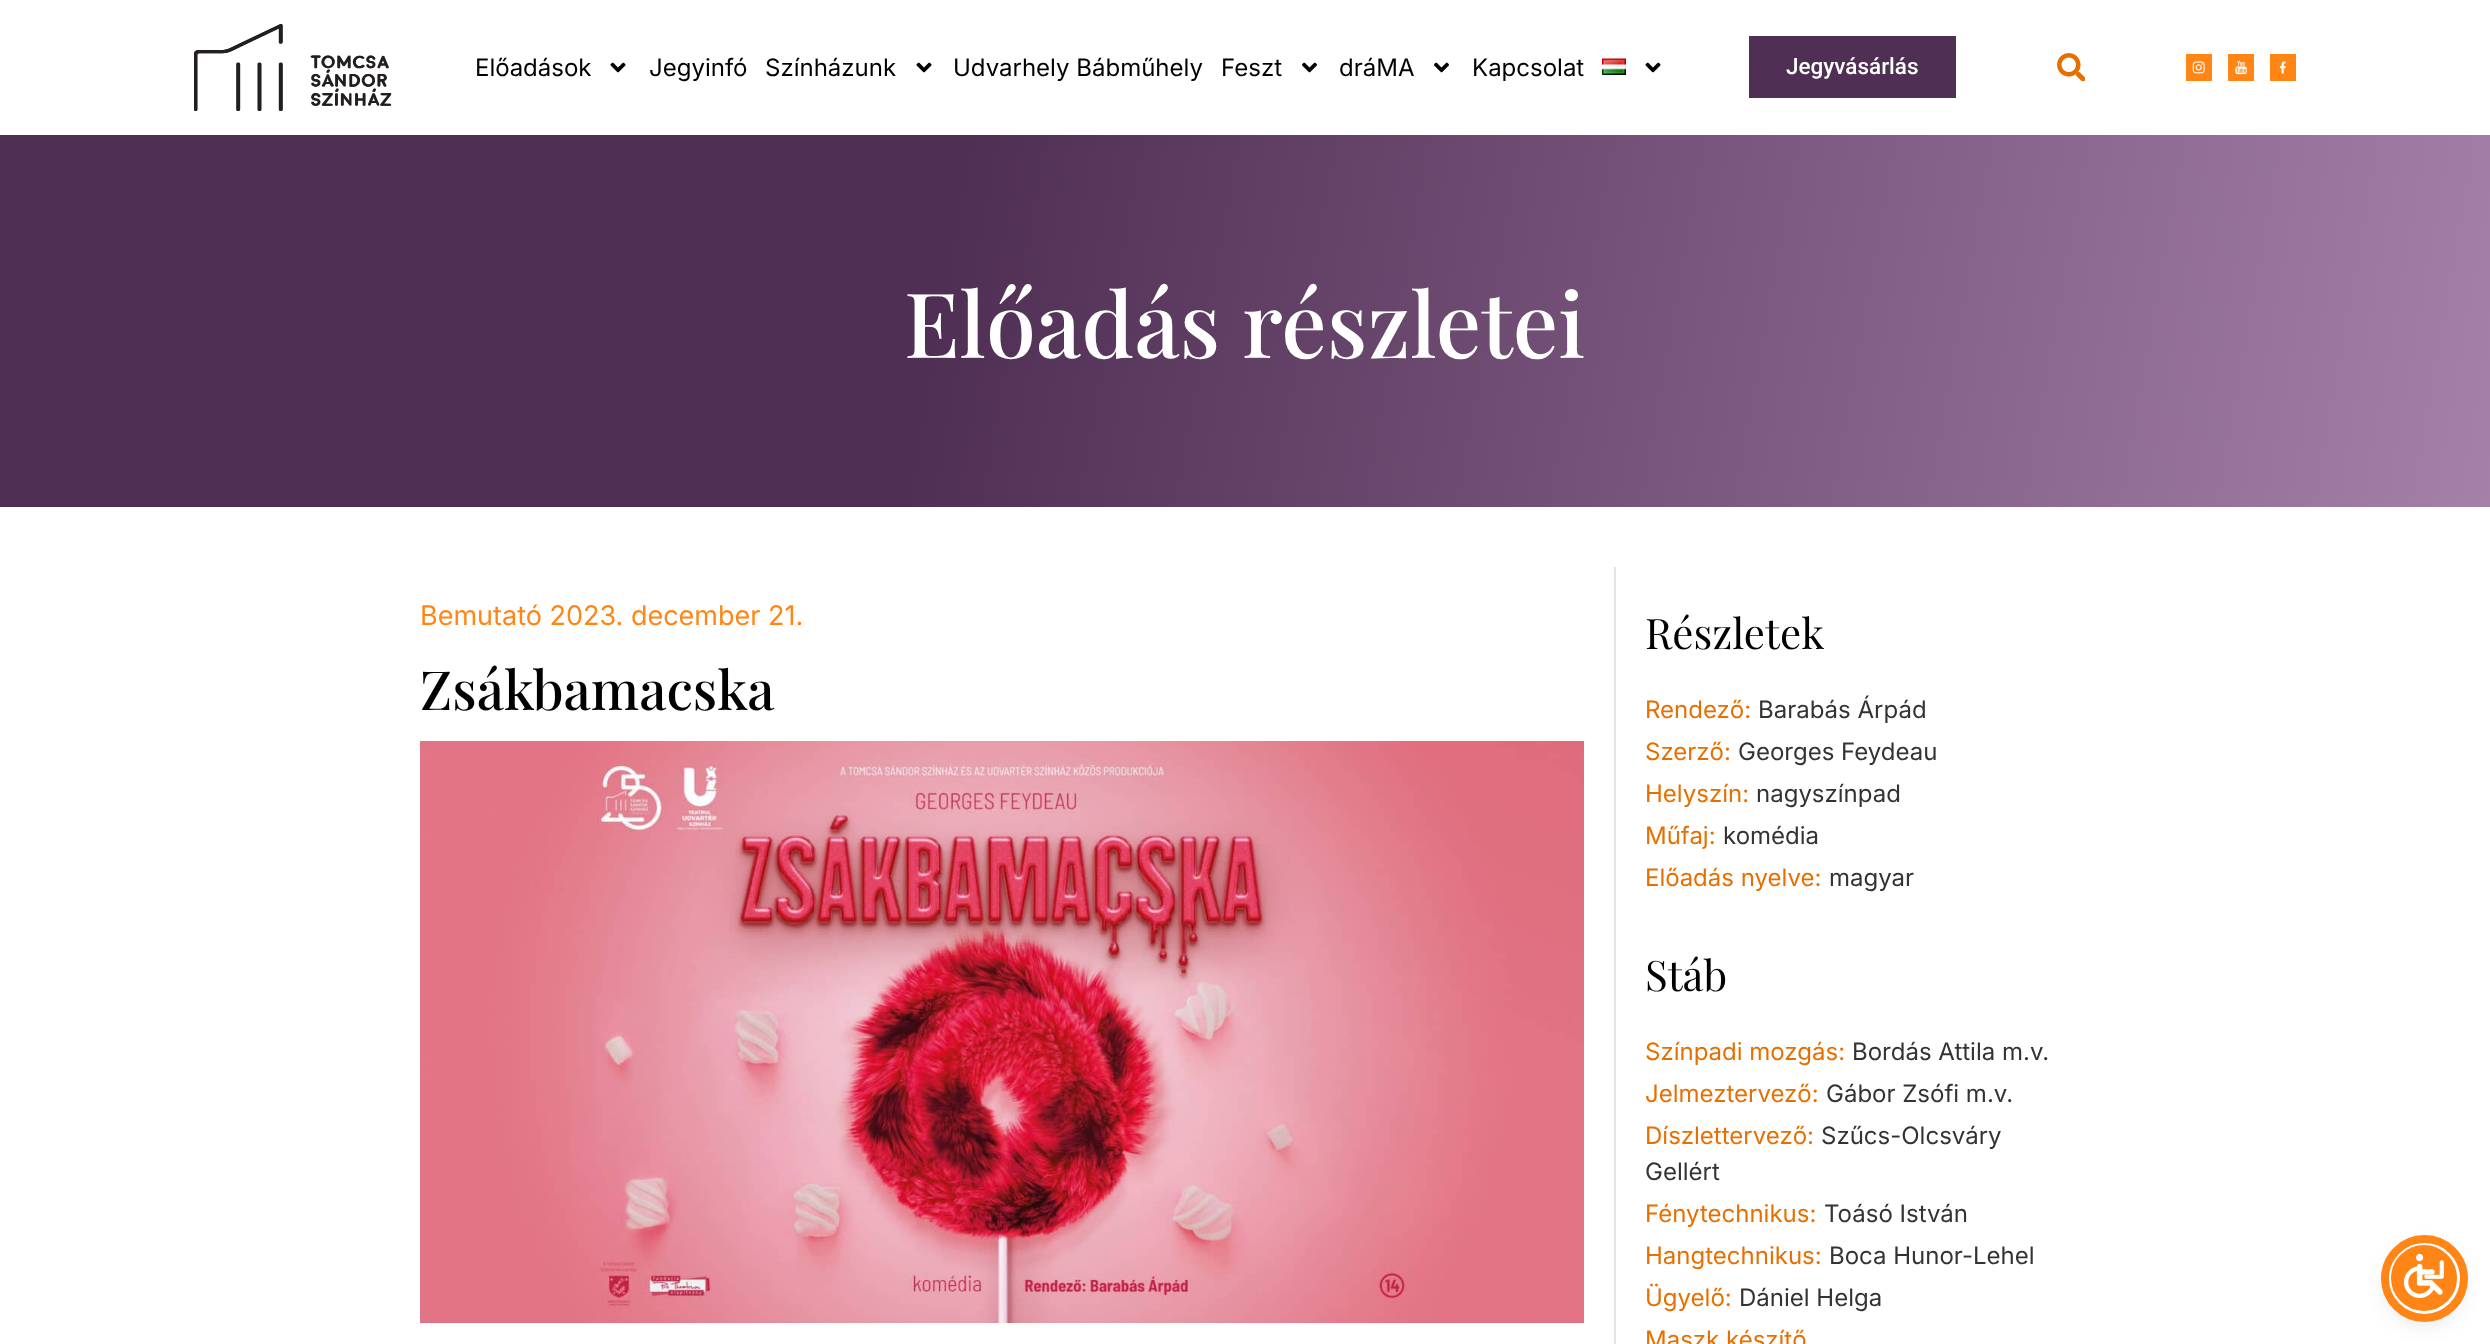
<svg xmlns="http://www.w3.org/2000/svg" width="2490" height="1344" viewBox="0 0 2490 1344">
  <style>
    .t1 { font: 24px Inter; fill: #000; }
    .t2 { font: 500 22.5px Roboto; fill: #fff; }
    .t3 { font: 500 90px Playfair Display; fill: #fff; }
    .t4 { font: 27px Inter; fill: #ff8615; }
    .t5 { font: 500 54px Playfair Display; fill: #000; }
    .t6 { font: 42px Playfair Display; fill: #000; }
    .t7 { font: 24px Inter; fill: #e76f00; }
    .t8 { font: 24px Inter; fill: #333; }
  </style>
  <defs>
    <linearGradient id="g1" gradientUnits="userSpaceOnUse" x1="2484" y1="540" x2="5.7" y2="102"><stop offset="0" stop-color="#a581aa"/><stop offset="0.62" stop-color="#502f54"/></linearGradient>
  </defs>
  <rect width="100%" height="100%" fill="#fff"/>
  <image x="194" y="24" width="198" height="87" href="images/1.png"/>
  <text x="475" y="76" class="t1">Előadások</text>
  <image x="610" y="62" width="16" height="11" href="images/2.png"/>
  <text x="649" y="76" class="t1">Jegyinfó</text>
  <text x="765" y="76" class="t1">Színházunk</text>
  <image x="916" y="62" width="16" height="11" href="images/2.png"/>
  <text x="953" y="76" class="t1">Udvarhely Bábműhely</text>
  <text x="1221" y="76" class="t1">Feszt</text>
  <image x="1302" y="62" width="15" height="11" href="images/3.png"/>
  <text x="1339" y="76" class="t1">dráMA</text>
  <image x="1434" y="62" width="15" height="11" href="images/3.png"/>
  <text x="1472" y="76" class="t1">Kapcsolat</text>
  <image x="1602" y="58" width="24" height="17" href="images/4.png"/>
  <image x="1645" y="62" width="16" height="11" href="images/2.png"/>
  <rect x="1749" y="36" width="207" height="62" fill="#502f54"/>
  <text x="1786" y="74" class="t2">Jegyvásárlás</text>
  <image x="2057" y="53" width="28" height="28" href="images/5.png"/>
  <image x="2186" y="54" width="26" height="27" href="images/6.png"/>
  <image x="2228" y="54" width="26" height="27" href="images/7.png"/>
  <image x="2270" y="54" width="26" height="27" href="images/8.png"/>
  <rect x="0" y="135" width="2490" height="372" fill="url(#g1)"/>
  <text x="904" y="358" class="t3">Előadás részletei</text>
  <text x="420" y="625" class="t4">Bemutató 2023. december 21.</text>
  <text x="420" y="710" class="t5">Zsákbamacska</text>
  <image x="420" y="741" width="1164" height="582" href="images/9.png"/>
  <rect x="1614" y="567" width="2" height="777" fill="#e4e4e4"/>
  <text x="1645" y="649" class="t6">Részletek</text>
  <text x="1645" y="718" class="t7">Rendező:</text>
  <text x="1758" y="718" class="t8">Barabás Árpád</text>
  <text x="1645" y="760" class="t7">Szerző:</text>
  <text x="1738" y="760" class="t8">Georges Feydeau</text>
  <text x="1645" y="802" class="t7">Helyszín:</text>
  <text x="1756" y="802" class="t8">nagyszínpad</text>
  <text x="1645" y="844" class="t7">Műfaj:</text>
  <text x="1723" y="844" class="t8">komédia</text>
  <text x="1645" y="886" class="t7">Előadás nyelve:</text>
  <text x="1829" y="886" class="t8">magyar</text>
  <text x="1645" y="991" class="t6">Stáb</text>
  <text x="1645" y="1060" class="t7">Színpadi mozgás:</text>
  <text x="1852" y="1060" class="t8">Bordás Attila m.v.</text>
  <text x="1645" y="1102" class="t7">Jelmeztervező:</text>
  <text x="1826" y="1102" class="t8">Gábor Zsófi m.v.</text>
  <text x="1645" y="1144" class="t7">Díszlettervező:</text>
  <text x="1821" y="1144" class="t8">Szűcs-Olcsváry</text>
  <text x="1645" y="1180" class="t8">Gellért</text>
  <text x="1645" y="1222" class="t7">Fénytechnikus:</text>
  <text x="1824" y="1222" class="t8">Toásó István</text>
  <text x="1645" y="1264" class="t7">Hangtechnikus:</text>
  <text x="1829" y="1264" class="t8">Boca Hunor-Lehel</text>
  <text x="1645" y="1306" class="t7">Ügyelő:</text>
  <text x="1739" y="1306" class="t8">Dániel Helga</text>
  <text x="1645" y="1348" class="t7">Maszk készítő</text>
  <rect x="2388" y="1245" width="72" height="72" rx="36" fill="#5d649433" filter="blur(3px)"/>
  <rect x="2388" y="1250" width="72" height="72" rx="36" fill="#252c6126" filter="blur(11px)"/>
  <circle cx="2424" cy="1278" r="34.5" fill="#ff8616" stroke="#fff" stroke-width="3"/>
  <circle cx="2424.5" cy="1278.5" r="39.5" fill="none" stroke="#ff8616" stroke-width="8"/>
  <image x="2403" y="1253" width="41" height="45" href="images/10.png"/>
</svg>
